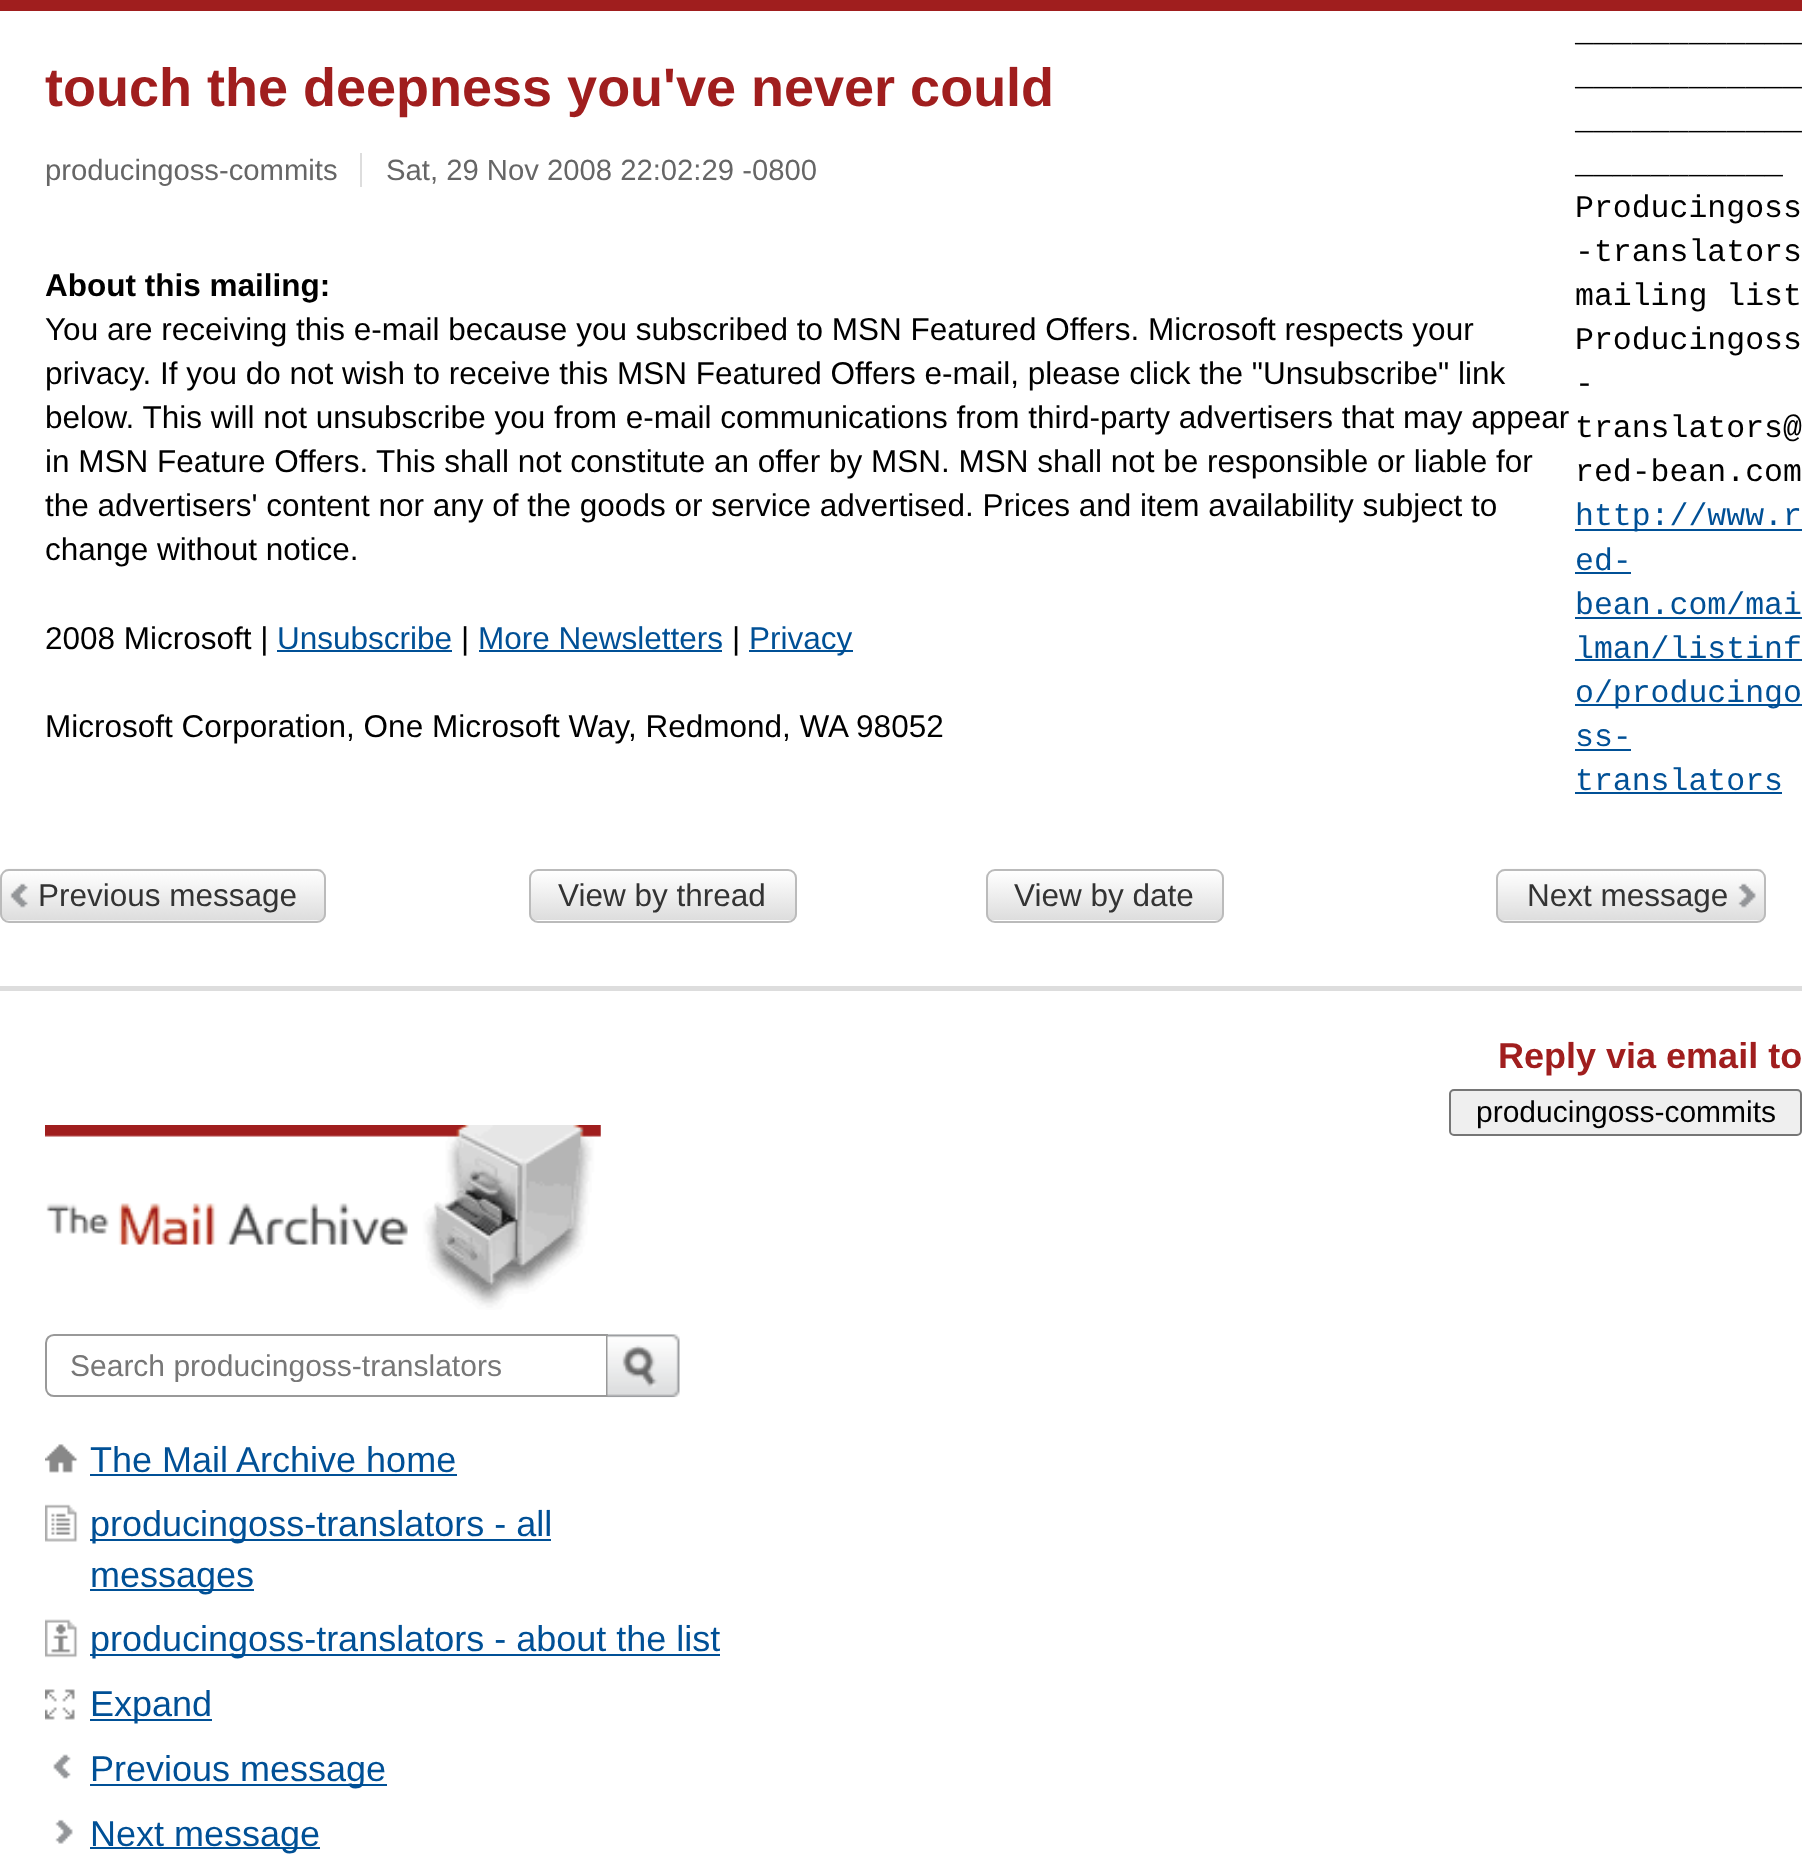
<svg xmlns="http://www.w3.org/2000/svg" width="1802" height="1864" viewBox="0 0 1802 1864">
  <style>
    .t1 { font: bold 54px Liberation Sans; fill: #a01e1e; }
    .t2 { font: 29.25px Liberation Sans; fill: #666; }
    .t3 { font: bold 31.5px Liberation Sans; fill: #000; }
    .t4 { font: 31.5px Liberation Sans; fill: #000; }
    .t5 { font: 31.5px Liberation Sans; fill: #005096; }
    .t6 { font: 31.5px Liberation Mono; fill: #000; }
    .t7 { font: 31.5px Liberation Mono; fill: #005096; }
    .t8 { font: 31.5px Liberation Sans; fill: #333; }
    .t9 { font: bold 36px Liberation Sans; fill: #a01e1e; }
    .t10 { font: 30px Liberation Sans; fill: #000; }
    .t11 { font: 30px Liberation Sans; fill: #777; }
    .t12 { font: 36px Liberation Sans; fill: #005096; }
  </style>
  <defs>
    <clipPath id="clip1"><rect x="529" y="869" width="268" height="54" rx="9"/></clipPath>
    <linearGradient id="g1" gradientUnits="userSpaceOnUse" x1="663" y1="871" x2="663" y2="920"><stop offset="0" stop-color="#fff"/><stop offset="1" stop-color="#ddd"/></linearGradient>
    <clipPath id="clip2"><rect x="986" y="869" width="238" height="54" rx="9"/></clipPath>
    <linearGradient id="g2" gradientUnits="userSpaceOnUse" x1="1105" y1="871" x2="1105" y2="920"><stop offset="0" stop-color="#fff"/><stop offset="1" stop-color="#ddd"/></linearGradient>
    <clipPath id="clip3"><rect x="70" y="1348" width="513" height="34"/></clipPath>
  </defs>
  <rect width="100%" height="100%" fill="#fff"/>
  <rect x="0" y="0" width="1802" height="11" fill="#a01e1e"/>
  <text x="45" y="106" class="t1">touch the deepness you've never could</text>
  <text x="45" y="180" class="t2">producingoss-commits</text>
  <rect x="360" y="153" width="2" height="34" fill="#ddd"/>
  <text x="386" y="180" class="t2">Sat, 29 Nov 2008 22:02:29 -0800</text>
  <text x="45" y="296" class="t3">About this mailing:</text>
  <text x="45" y="340" class="t4">You are receiving this e-mail because you subscribed to MSN Featured Offers. Microsoft respects your</text>
  <text x="45" y="384" class="t4">privacy. If you do not wish to receive this MSN Featured Offers e-mail, please click the "Unsubscribe" link</text>
  <text x="45" y="428" class="t4">below. This will not unsubscribe you from e-mail communications from third-party advertisers that may appear</text>
  <text x="45" y="472" class="t4">in MSN Feature Offers.</text>
  <text x="376" y="472" class="t4">This shall not constitute an offer by MSN. MSN shall not be responsible or liable for</text>
  <text x="45" y="516" class="t4">the advertisers' content nor any of the goods or service advertised. Prices and item availability subject to</text>
  <text x="45" y="560" class="t4">change without notice.</text>
  <text x="45" y="649" class="t4">2008 Microsoft |</text>
  <text x="277" y="649" class="t5">Unsubscribe</text>
  <rect x="277" y="650" width="175" height="2" fill="#005096"/>
  <text x="461" y="649" class="t4">|</text>
  <text x="478" y="649" class="t5">More Newsletters</text>
  <rect x="479" y="650" width="243" height="2" fill="#005096"/>
  <text x="732" y="649" class="t4">|</text>
  <rect x="749" y="650" width="104" height="2" fill="#005096"/>
  <text x="749" y="649" class="t5">Privacy</text>
  <text x="45" y="737" class="t4">Microsoft Corporation, One Microsoft Way, Redmond, WA 98052</text>
  <text x="1575" y="41" class="t6">____________</text>
  <text x="1575" y="85" class="t6">____________</text>
  <text x="1575" y="129" class="t6">____________</text>
  <text x="1575" y="173" class="t6">___________</text>
  <text x="1575" y="217" class="t6">Producingoss</text>
  <text x="1575" y="261" class="t6">-translators</text>
  <text x="1575" y="305" class="t6">mailing list</text>
  <text x="1575" y="349" class="t6">Producingoss</text>
  <text x="1575" y="393" class="t6">-</text>
  <text x="1575" y="437" class="t6">translators@</text>
  <text x="1575" y="481" class="t6">red-bean.com</text>
  <rect x="1575" y="529" width="227" height="2" fill="#005096"/>
  <text x="1575" y="525" class="t7">http://www.r</text>
  <text x="1575" y="570" class="t7">ed-</text>
  <rect x="1575" y="572" width="56" height="2" fill="#005096"/>
  <text x="1575" y="614" class="t7">bean.com/mai</text>
  <rect x="1575" y="617" width="227" height="2" fill="#005096"/>
  <text x="1575" y="658" class="t7">lman/listinf</text>
  <rect x="1575" y="659" width="227" height="2" fill="#005096"/>
  <rect x="1575" y="704" width="227" height="2" fill="#005096"/>
  <text x="1575" y="702" class="t7">o/producingo</text>
  <text x="1575" y="746" class="t7">ss-</text>
  <rect x="1575" y="749" width="56" height="2" fill="#005096"/>
  <text x="1575" y="790" class="t7">translators</text>
  <rect x="1575" y="792" width="207" height="2" fill="#005096"/>
  <image x="0" y="868" width="326" height="54" href="images/1.png"/>
  <rect x="1" y="870" width="324" height="52" rx="8" fill="none" stroke="#bbb" stroke-width="2"/>
  <text x="38" y="906" class="t8">Previous message</text>
  <g clip-path="url(#clip1)">
    <rect x="529" y="871" width="268" height="49" fill="url(#g1)"/>
  </g>
  <rect x="530" y="870" width="266" height="52" rx="8" fill="none" stroke="#bbb" stroke-width="2"/>
  <text x="558" y="906" class="t8">View by thread</text>
  <g clip-path="url(#clip2)">
    <rect x="986" y="871" width="238" height="49" fill="url(#g2)"/>
  </g>
  <rect x="987" y="870" width="236" height="52" rx="8" fill="none" stroke="#bbb" stroke-width="2"/>
  <text x="1014" y="906" class="t8">View by date</text>
  <image x="1496" y="868" width="270" height="54" href="images/2.png"/>
  <rect x="1497" y="870" width="268" height="52" rx="8" fill="none" stroke="#bbb" stroke-width="2"/>
  <text x="1527" y="906" class="t8">Next message</text>
  <rect x="0" y="986" width="1802" height="5" fill="#ddd"/>
  <text x="1498" y="1068" class="t9">Reply via email to</text>
  <rect x="1450" y="1090" width="351" height="45" rx="4" fill="#efefef" stroke="#767676" stroke-width="2"/>
  <text x="1476" y="1122" class="t10">producingoss-commits</text>
  <image x="45" y="1125" width="556" height="185" href="images/3.png"/>
  <path d="M54 1335H607V1396H54C49.5 1396 46 1392.5 46 1388V1343C46 1338.5 49.5 1335 54 1335Z" fill="none" stroke="#999" stroke-width="2"/>
  <g clip-path="url(#clip3)">
    <text x="70" y="1376" class="t11">Search producingoss-translators</text>
  </g>
  <image x="607" y="1334" width="73" height="64" href="images/4.png"/>
  <image x="45" y="1444" width="33" height="29" href="images/5.png"/>
  <text x="90" y="1472" class="t12">The Mail Archive home</text>
  <rect x="90" y="1474" width="367" height="2" fill="#005096"/>
  <image x="45" y="1504" width="33" height="38" href="images/6.png"/>
  <rect x="90" y="1539" width="461" height="2" fill="#005096"/>
  <text x="90" y="1536" class="t12">producingoss-translators - all</text>
  <rect x="90" y="1589" width="164" height="2" fill="#005096"/>
  <text x="90" y="1587" class="t12">messages</text>
  <image x="45" y="1619" width="33" height="39" href="images/7.png"/>
  <rect x="90" y="1654" width="630" height="2" fill="#005096"/>
  <text x="90" y="1651" class="t12">producingoss-translators - about the list</text>
  <image x="45" y="1689" width="30" height="31" href="images/8.png"/>
  <rect x="90" y="1719" width="122" height="2" fill="#005096"/>
  <text x="90" y="1716" class="t12">Expand</text>
  <image x="53" y="1754" width="18" height="25" href="images/9.png"/>
  <rect x="90" y="1784" width="297" height="2" fill="#005096"/>
  <text x="90" y="1781" class="t12">Previous message</text>
  <image x="55" y="1819" width="18" height="25" href="images/10.png"/>
  <rect x="90" y="1847" width="230" height="2" fill="#005096"/>
  <text x="90" y="1846" class="t12">Next message</text>
</svg>
